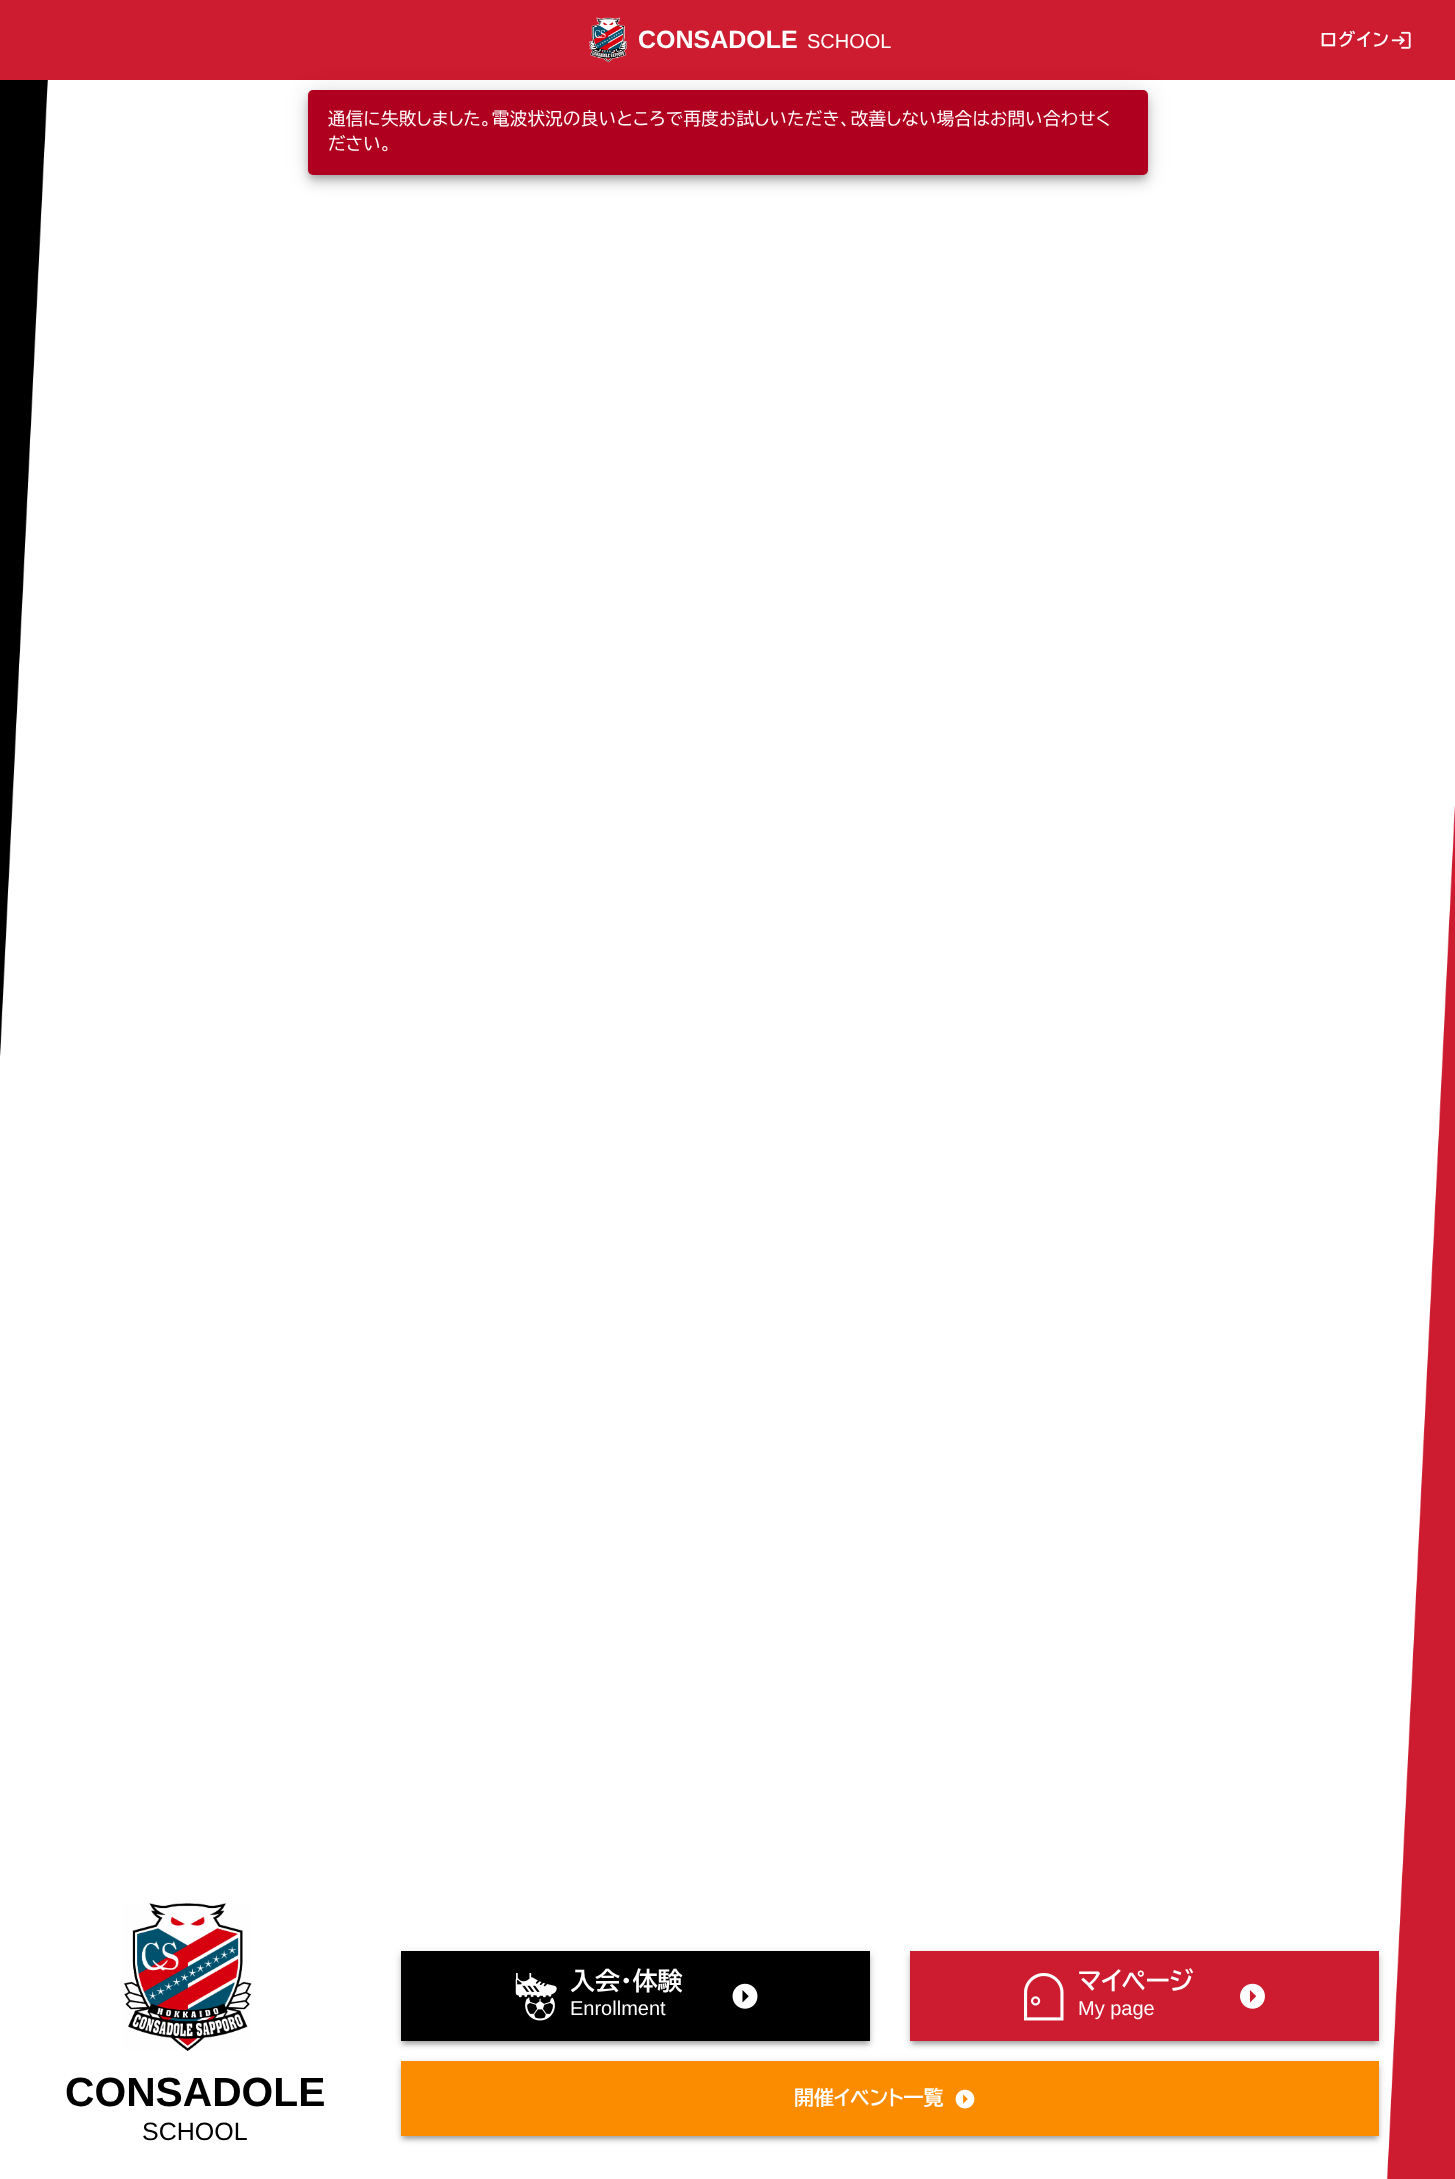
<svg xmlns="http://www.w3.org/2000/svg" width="1455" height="2179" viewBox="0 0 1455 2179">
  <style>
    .t1 { font: bold 25px Liberation Sans; fill: #fff; }
    .t2 { font: 20px Liberation Sans; fill: #fff; }
    .t3 { font: bold 17.5px BIZ UDPGothic; letter-spacing: 1.5px; fill: #fff; }
    .t4 { font: bold 40.75px Liberation Sans; fill: #000; }
    .t5 { font: 25px Liberation Sans; fill: #000; }
    .t6 { font: bold 25px BIZ UDPGothic; fill: #fff; }
    .t7 { font: bold 20px BIZ UDPGothic; fill: #fff; }
    .t8 { font: 17.5px BIZ UDPGothic; letter-spacing: 0.3px; fill: #fff; }
  </style>
  <rect width="100%" height="100%" fill="#fff"/>
  <rect x="0" y="0" width="1455" height="80" fill="#cd1b2f"/>
  <image x="589" y="17" width="39" height="46" href="images/1.png"/>
  <text x="638" y="48" class="t1">CONSADOLE</text>
  <text x="807" y="48" class="t2">SCHOOL</text>
  <text x="1320" y="46" class="t3">ログイン</text>
  <image x="1391" y="31" width="20" height="18" href="images/2.png"/>
  <image x="0" y="80" width="1455" height="2099" href="images/3.png"/>
  <image x="123" y="1903" width="129" height="148" href="images/4.png"/>
  <text x="65" y="2106" class="t4">CONSADOLE</text>
  <text x="142" y="2140" class="t5">SCHOOL</text>
  <rect x="401" y="1953" width="469" height="90" fill="#0000001f" filter="blur(5px)"/>
  <rect x="401" y="1955" width="469" height="90" fill="#00000024" filter="blur(2.5px)"/>
  <rect x="404" y="1958" width="464" height="85" fill="#00000033" filter="blur(2px)"/>
  <rect x="401" y="1951" width="469" height="90" fill="#000"/>
  <image x="515" y="1973" width="42" height="48" href="images/5.png"/>
  <text x="570" y="1990" class="t6">入会・体験</text>
  <text x="570" y="2015" class="t2">Enrollment</text>
  <image x="732" y="1983" width="26" height="26" href="images/6.png"/>
  <rect x="910" y="1953" width="469" height="90" fill="#0000001f" filter="blur(5px)"/>
  <rect x="910" y="1955" width="469" height="90" fill="#00000024" filter="blur(2.5px)"/>
  <rect x="913" y="1958" width="463" height="85" fill="#00000033" filter="blur(2px)"/>
  <rect x="910" y="1951" width="469" height="90" fill="#cd1b2f"/>
  <image x="1024" y="1973" width="40" height="48" href="images/7.png"/>
  <text x="1078" y="1990" class="t6">マイページ</text>
  <text x="1078" y="2015" class="t2">My page</text>
  <image x="1240" y="1983" width="25" height="26" href="images/8.png"/>
  <rect x="401" y="2063" width="978" height="75" fill="#0000001f" filter="blur(5px)"/>
  <rect x="401" y="2065" width="978" height="75" fill="#00000024" filter="blur(2.5px)"/>
  <rect x="404" y="2068" width="972" height="70" fill="#00000033" filter="blur(2px)"/>
  <rect x="401" y="2061" width="978" height="75" fill="#fb8c00"/>
  <text x="794" y="2105" class="t7">開催イベント一覧</text>
  <image x="955" y="2089" width="20" height="20" href="images/9.png"/>
  <rect x="308" y="91" width="840" height="85" rx="5" fill="#0000001f" filter="blur(11px)"/>
  <rect x="308" y="98" width="840" height="85" rx="5" fill="#00000024" filter="blur(6px)"/>
  <rect x="309" y="95" width="837" height="83" rx="4" fill="#00000033" filter="blur(3px)"/>
  <rect x="308" y="90" width="840" height="85" rx="5" fill="#b00020"/>
  <text x="328" y="125" class="t8">通信に失敗しました。電波状況の良いところで再度お試しいただき、改善しない場合はお問い合わせく</text>
  <text x="328" y="150" class="t8">ださい。</text>
</svg>
